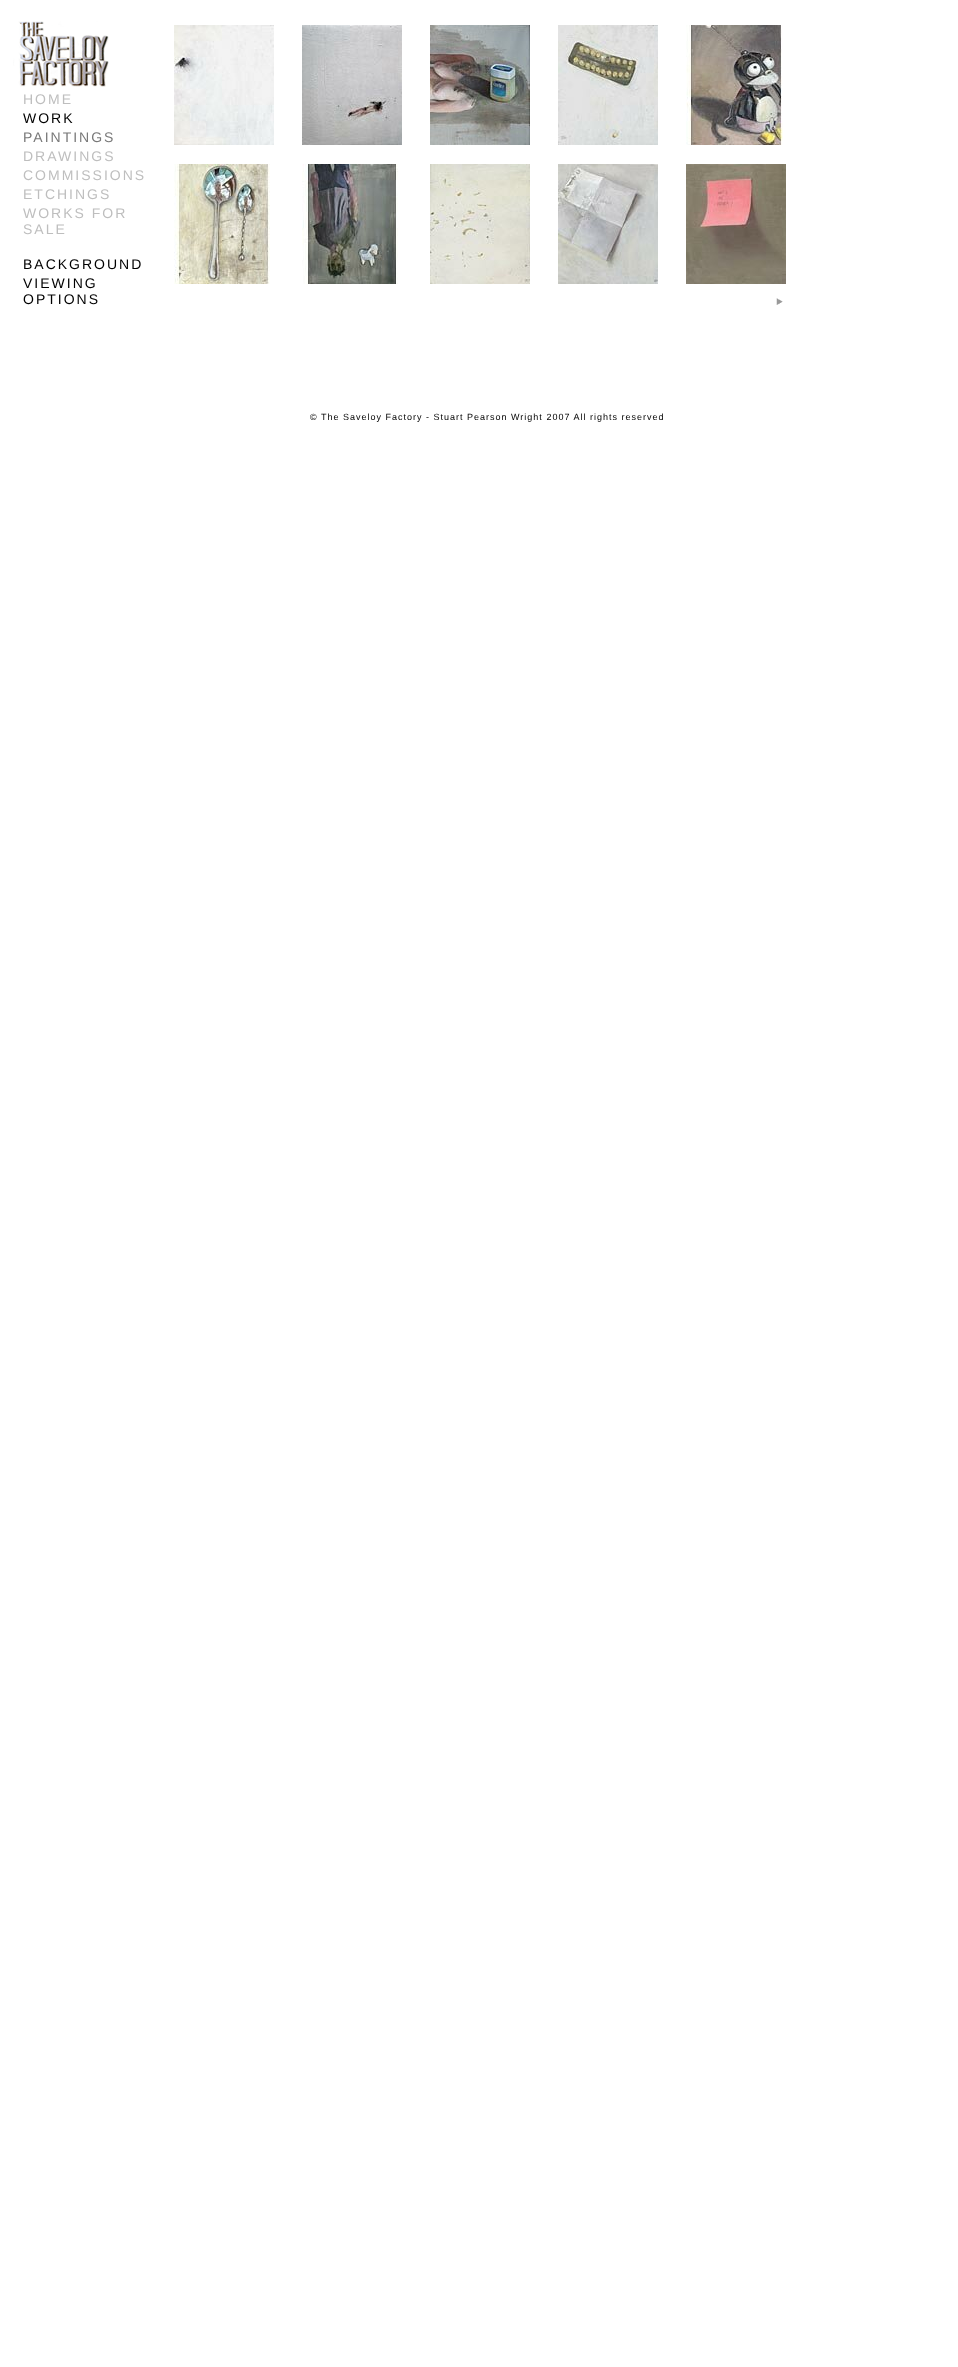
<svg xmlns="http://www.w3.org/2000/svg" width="958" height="2367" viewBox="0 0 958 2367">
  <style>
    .t1 { font: 14px Liberation Sans; letter-spacing: 2px; fill: #bebebe; }
    .t2 { font: 14px Liberation Sans; letter-spacing: 2px; fill: #000; }
    .t3 { font: 14px Liberation Sans; letter-spacing: 2px; fill: #787878; }
    .t4 { font: 9px Liberation Sans; letter-spacing: 1px; fill: #000; }
  </style>
  <rect width="100%" height="100%" fill="#fff"/>
  <image x="13" y="21" width="96" height="66" href="images/1.png"/>
  <text x="23" y="104" class="t1">HOME</text>
  <text x="23" y="123" class="t2">WORK</text>
  <text x="23" y="142" class="t3">PAINTINGS</text>
  <text x="23" y="161" class="t1">DRAWINGS</text>
  <text x="23" y="180" class="t1">COMMISSIONS</text>
  <text x="23" y="199" class="t1">ETCHINGS</text>
  <text x="23" y="218" class="t1">WORKS FOR</text>
  <text x="23" y="234" class="t1">SALE</text>
  <text x="23" y="269" class="t2">BACKGROUND</text>
  <text x="23" y="288" class="t2">VIEWING</text>
  <text x="23" y="304" class="t2">OPTIONS</text>
  <image x="174" y="25" width="100" height="120" href="images/2.png"/>
  <image x="302" y="25" width="100" height="120" href="images/3.png"/>
  <image x="430" y="25" width="100" height="120" href="images/4.png"/>
  <image x="558" y="25" width="100" height="120" href="images/5.png"/>
  <image x="686" y="25" width="97" height="120" href="images/6.png"/>
  <image x="174" y="164" width="96" height="120" href="images/7.png"/>
  <image x="302" y="164" width="96" height="120" href="images/8.png"/>
  <image x="430" y="164" width="100" height="120" href="images/9.png"/>
  <image x="558" y="164" width="100" height="120" href="images/10.png"/>
  <image x="686" y="164" width="100" height="120" href="images/11.png"/>
  <image x="776" y="298" width="7" height="7" href="images/12.png"/>
  <text x="310" y="420" class="t4">© The Saveloy Factory - Stuart Pearson Wright 2007 All rights reserved</text>
</svg>
